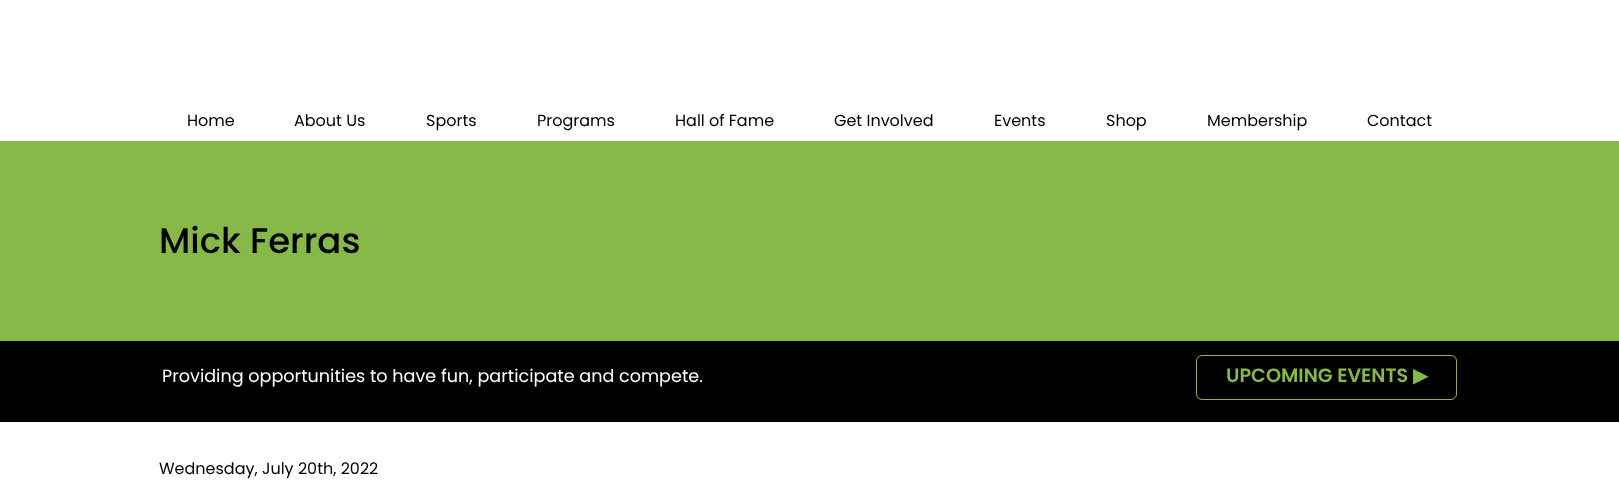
<svg xmlns="http://www.w3.org/2000/svg" width="1619" height="500" viewBox="0 0 1619 500">
  <style>
    .t1 { font: 16px Poppins; fill: #000; }
    .t2 { font: 500 35.5px Poppins; fill: #000; }
    .t3 { font: 17.6px Poppins; fill: #fff; }
    .t4 { font: 600 19.25px Poppins; fill: #86b948; }
    .t5 { font: bold 19.25px DejaVu Sans; fill: #86b948; }
  </style>
  <rect width="100%" height="100%" fill="#fff"/>
  <text x="187" y="126" class="t1">Home</text>
  <text x="294" y="126" class="t1">About Us</text>
  <text x="426" y="126" class="t1">Sports</text>
  <text x="537" y="126" class="t1">Programs</text>
  <text x="675" y="126" class="t1">Hall of Fame</text>
  <text x="834" y="126" class="t1">Get Involved</text>
  <text x="994" y="126" class="t1">Events</text>
  <text x="1106" y="126" class="t1">Shop</text>
  <text x="1207" y="126" class="t1">Membership</text>
  <text x="1367" y="126" class="t1">Contact</text>
  <rect x="0" y="141" width="1619" height="200" fill="#86b948"/>
  <text x="159" y="253" class="t2">Mick Ferras</text>
  <rect x="0" y="341" width="1619" height="81" fill="#000"/>
  <text x="162" y="382" class="t3">Providing opportunities to have fun, participate and compete.</text>
  <rect x="1196.5" y="355.5" width="260" height="44" rx="5.5" fill="none" stroke="#86b948"/>
  <text x="1226" y="382" class="t4">UPCOMING EVENTS</text>
  <text x="1413" y="382" class="t5">▶︎</text>
  <text x="159" y="474" class="t1">Wednesday, July 20th, 2022</text>
</svg>
